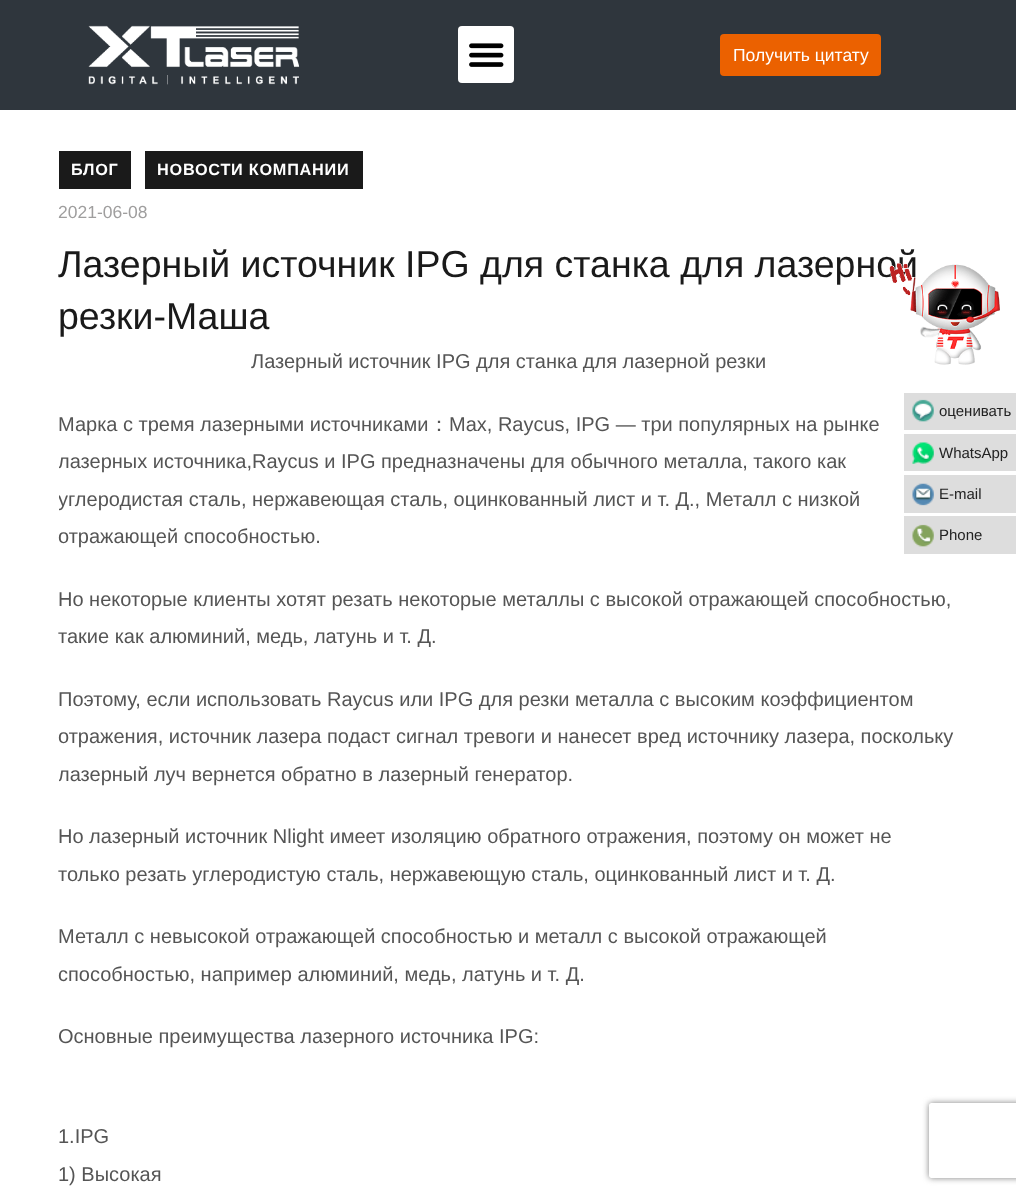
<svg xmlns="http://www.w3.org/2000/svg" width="1016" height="1194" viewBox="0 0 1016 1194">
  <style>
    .t1 { font: 17.5px Liberation Sans; fill: #fff; }
    .t2 { font: bold 16.25px Liberation Sans; letter-spacing: 0.75px; fill: #fff; }
    .t3 { font: 17.5px Liberation Sans; fill: #9f9e9e; }
    .t4 { font: 37.5px Liberation Sans; fill: #1a1a1a; }
    .t5 { font: 20px Liberation Sans; fill: #555; }
    .t6 { font: 500 20px WenQuanYi Zen Hei; fill: #555; }
    .t7 { font: 15px Liberation Sans; fill: #222; }
  </style>
  <defs>
    <clipPath id="clip1"><rect x="59" y="344" width="900" height="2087"/></clipPath>
    <clipPath id="clip2"><path d="M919 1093H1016V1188H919ZM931.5 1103H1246.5C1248 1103 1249 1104 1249 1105.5V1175.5C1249 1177 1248 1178 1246.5 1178H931.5C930 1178 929 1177 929 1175.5V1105.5C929 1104 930 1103 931.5 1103Z" clip-rule="evenodd"/></clipPath>
  </defs>
  <rect width="100%" height="100%" fill="#fff"/>
  <rect x="0" y="0" width="1016" height="110" fill="#2f363d"/>
  <image x="88" y="25" width="212" height="60" href="images/1.png"/>
  <rect x="458" y="26" width="56" height="57" rx="4" fill="#fff"/>
  <image x="469" y="43" width="35" height="24" href="images/2.png"/>
  <rect x="720" y="34" width="161" height="42" rx="4" fill="#eb6100"/>
  <text x="733" y="61" class="t1">Получить цитату</text>
  <rect x="59" y="151" width="72" height="38" fill="#1a1a1a"/>
  <text x="71" y="175" class="t2">БЛОГ</text>
  <rect x="145" y="151" width="218" height="38" fill="#1a1a1a"/>
  <text x="157" y="175" class="t2">НОВОСТИ КОМПАНИИ</text>
  <text x="58" y="218" class="t3">2021-06-08</text>
  <text x="58" y="277" class="t4">Лазерный источник IPG для станка для лазерной</text>
  <text x="58" y="329" class="t4">резки-Маша</text>
  <text x="251" y="368" class="t5">Лазерный источник IPG для станка для лазерной резки</text>
  <text x="58" y="431" class="t5">Марка с тремя лазерными источниками</text>
  <text x="429" y="431" class="t6">：</text>
  <text x="449" y="431" class="t5">Max, Raycus, IPG — три популярных на рынке</text>
  <g clip-path="url(#clip1)">
    <text x="58" y="468" class="t5">лазерных источника,Raycus и IPG предназначены для обычного металла, такого как</text>
    <text x="58" y="506" class="t5">углеродистая сталь, нержавеющая сталь, оцинкованный лист и т. Д., Металл с низкой</text>
  </g>
  <text x="58" y="543" class="t5">отражающей способностью.</text>
  <text x="58" y="606" class="t5">Но некоторые клиенты хотят резать некоторые металлы с высокой отражающей способностью,</text>
  <text x="58" y="643" class="t5">такие как алюминий, медь, латунь и т. Д.</text>
  <text x="58" y="706" class="t5">Поэтому, если использовать Raycus или IPG для резки металла с высоким коэффициентом</text>
  <text x="58" y="743" class="t5">отражения, источник лазера подаст сигнал тревоги и нанесет вред источнику лазера, поскольку</text>
  <g clip-path="url(#clip1)">
    <text x="58" y="781" class="t5">лазерный луч вернется обратно в лазерный генератор.</text>
  </g>
  <text x="58" y="843" class="t5">Но лазерный источник Nlight имеет изоляцию обратного отражения, поэтому он может не</text>
  <text x="58" y="881" class="t5">только резать углеродистую сталь, нержавеющую сталь, оцинкованный лист и т. Д.</text>
  <text x="58" y="943" class="t5">Металл с невысокой отражающей способностью и металл с высокой отражающей</text>
  <text x="58" y="981" class="t5">способностью, например алюминий, медь, латунь и т. Д.</text>
  <text x="58" y="1043" class="t5">Основные преимущества лазерного источника IPG:</text>
  <text x="58" y="1143" class="t5">1.IPG</text>
  <text x="58" y="1181" class="t5">1) Высокая</text>
  <image x="889" y="263" width="111" height="102" href="images/3.png"/>
  <rect x="904" y="393" width="112" height="37" fill="#ddd"/>
  <image x="912" y="399" width="22" height="23" href="images/4.png"/>
  <text x="939" y="416" class="t7">оценивать</text>
  <rect x="904" y="434" width="112" height="37" fill="#ddd"/>
  <image x="912" y="442" width="22" height="22" href="images/5.png"/>
  <text x="939" y="458" class="t7">WhatsApp</text>
  <rect x="904" y="475" width="112" height="38" fill="#ddd"/>
  <image x="912" y="483" width="22" height="23" href="images/6.png"/>
  <text x="939" y="499" class="t7">E-mail</text>
  <rect x="904" y="516" width="112" height="38" fill="#ddd"/>
  <image x="912" y="524" width="22" height="23" href="images/7.png"/>
  <text x="939" y="540" class="t7">Phone</text>
  <g clip-path="url(#clip2)">
    <rect x="929" y="1103" width="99" height="75" rx="2.5" fill="#808080" filter="blur(3px)"/>
  </g>
</svg>
